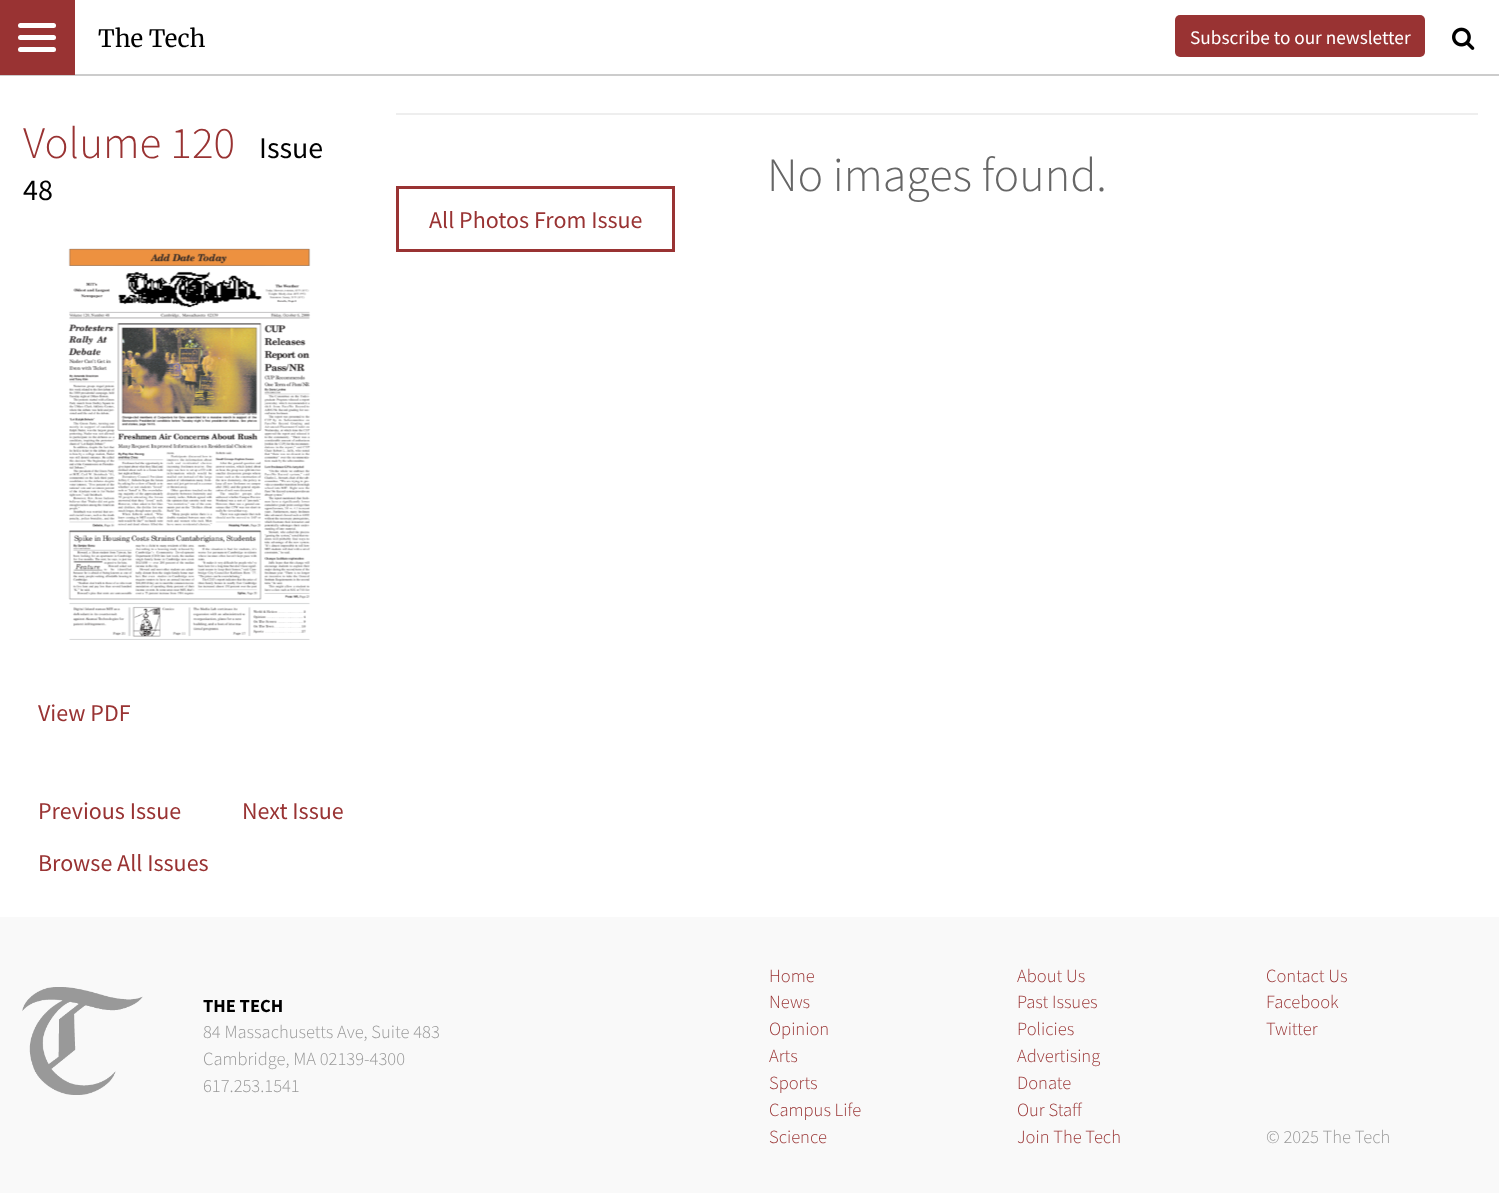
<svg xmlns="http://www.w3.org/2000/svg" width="1499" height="1193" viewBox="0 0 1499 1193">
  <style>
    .t1 { font: 24px Merriweather; fill: #000; }
    .t2 { font: 19.25px Source Sans Pro; fill: #fff; }
    .t3 { font: 300 45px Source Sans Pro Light; fill: #933; }
    .t4 { font: 30px Source Sans Pro; fill: #000; }
    .t5 { font: 24px Source Sans Pro; fill: #933; }
    .t6 { font: 300 48px Source Sans Pro Light; fill: #666; }
    .t7 { font: bold 18.5px Source Sans Pro; fill: #000; }
    .t8 { font: 300 18.5px Source Sans Pro Light; fill: #999; }
    .t9 { font: 300 18.5px Source Sans Pro Light; fill: #933; }
  </style>
  <rect width="100%" height="100%" fill="#fff"/>
  <rect x="0" y="74" width="1499" height="2" fill="#ccc"/>
  <rect x="0" y="0" width="75" height="75" fill="#933"/>
  <rect x="18" y="23" width="38" height="5" rx="2.5" fill="#fff"/>
  <rect x="18" y="35" width="38" height="5" rx="2.5" fill="#fff"/>
  <rect x="18" y="47" width="38" height="5" rx="2.5" fill="#fff"/>
  <text x="98" y="47" class="t1">The Tech</text>
  <rect x="1175" y="15" width="250" height="42" rx="5" fill="#933"/>
  <text x="1190" y="44" class="t2">Subscribe to our newsletter</text>
  <image x="1452" y="27" width="23" height="23" href="images/1.png"/>
  <text x="23" y="158" class="t3">Volume 120</text>
  <text x="259" y="158" class="t4">Issue</text>
  <text x="23" y="200" class="t4">48</text>
  <image x="68" y="248" width="243" height="392" href="images/2.png"/>
  <text x="38" y="721" class="t5">View PDF</text>
  <text x="38" y="819" class="t5">Previous Issue</text>
  <text x="242" y="819" class="t5">Next Issue</text>
  <text x="38" y="871" class="t5">Browse All Issues</text>
  <rect x="396" y="113" width="1082" height="2" fill="#eee"/>
  <text x="767" y="191" class="t6">No images found.</text>
  <rect x="397.5" y="187.5" width="276" height="63" fill="none" stroke="#933" stroke-width="3"/>
  <text x="429" y="228" class="t5">All Photos From Issue</text>
  <rect x="0" y="917" width="1499" height="276" fill="#f9f9f9"/>
  <image x="22" y="987" width="121" height="108" href="images/3.png"/>
  <text x="203" y="1012" class="t7">THE TECH</text>
  <text x="203" y="1038" class="t8">84 Massachusetts Ave, Suite 483</text>
  <text x="203" y="1065" class="t8">Cambridge, MA 02139-4300</text>
  <text x="203" y="1092" class="t8">617.253.1541</text>
  <text x="769" y="982" class="t9">Home</text>
  <text x="769" y="1008" class="t9">News</text>
  <text x="769" y="1035" class="t9">Opinion</text>
  <text x="769" y="1062" class="t9">Arts</text>
  <text x="769" y="1089" class="t9">Sports</text>
  <text x="769" y="1116" class="t9">Campus Life</text>
  <text x="769" y="1143" class="t9">Science</text>
  <text x="1017" y="982" class="t9">About Us</text>
  <text x="1017" y="1008" class="t9">Past Issues</text>
  <text x="1017" y="1035" class="t9">Policies</text>
  <text x="1017" y="1062" class="t9">Advertising</text>
  <text x="1017" y="1089" class="t9">Donate</text>
  <text x="1017" y="1116" class="t9">Our Staff</text>
  <text x="1017" y="1143" class="t9">Join The Tech</text>
  <text x="1266" y="982" class="t9">Contact Us</text>
  <text x="1266" y="1008" class="t9">Facebook</text>
  <text x="1266" y="1035" class="t9">Twitter</text>
  <text x="1266" y="1143" class="t8">© 2025 The Tech</text>
</svg>
